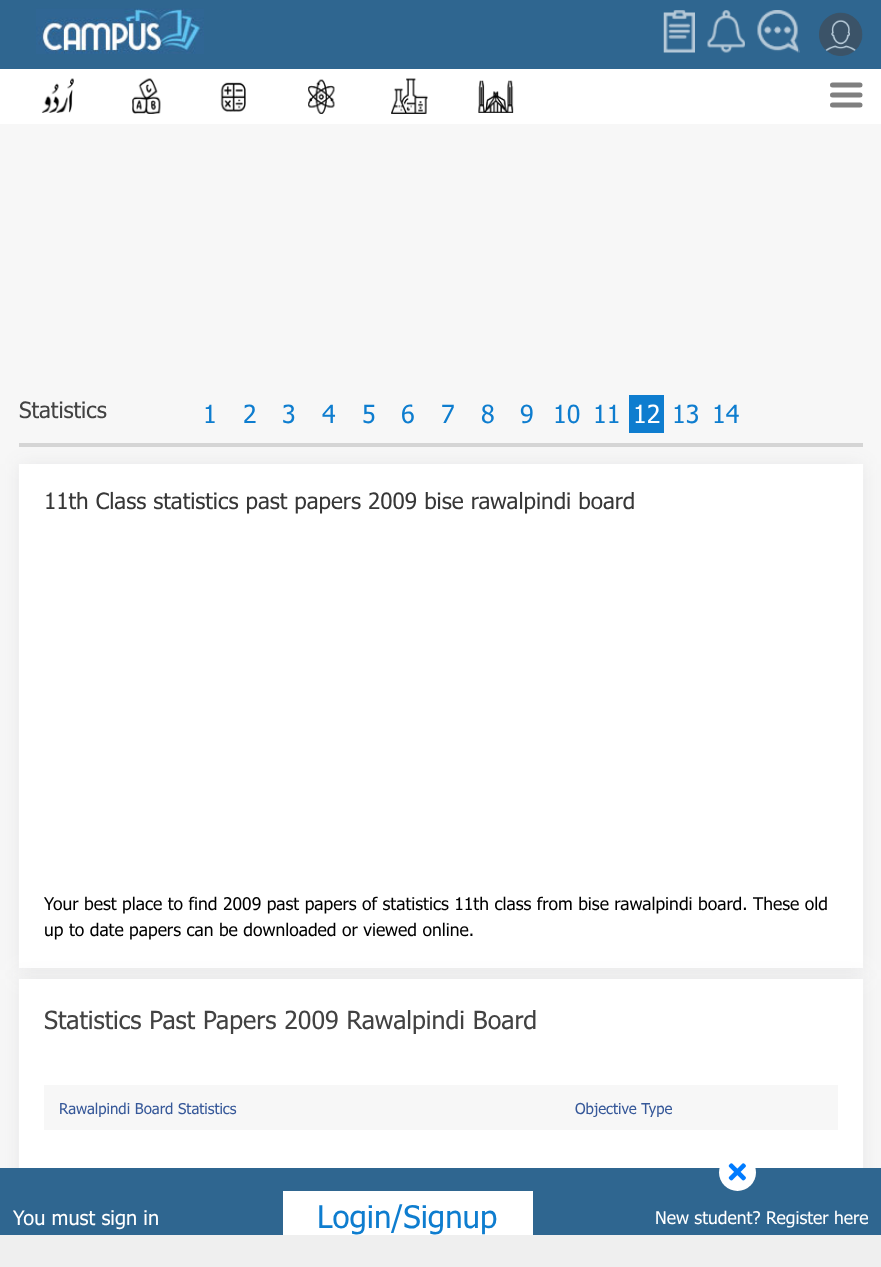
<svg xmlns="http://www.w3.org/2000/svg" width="881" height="1267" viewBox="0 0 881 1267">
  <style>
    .t1 { font: 22.5px Tahoma; fill: #424242; }
    .t2 { font: 25px Tahoma; fill: #0e7dcf; }
    .t3 { font: 25px Tahoma; fill: #fff; }
    .t4 { font: 22.5px Tahoma; fill: #373737; }
    .t5 { font: 17.5px Tahoma; fill: #000; }
    .t6 { font: 25px Tahoma; fill: #424242; }
    .t7 { font: 15px Tahoma; fill: #365899; }
    .t8 { font: 20px Tahoma; fill: #fff; }
    .t9 { font: 31.25px Tahoma; fill: #0e7dcf; }
    .t10 { font: 17.5px Tahoma; fill: #fff; }
  </style>
  <rect width="100%" height="100%" fill="#f7f7f7"/>
  <rect x="0" y="69" width="881" height="55" fill="#fff"/>
  <rect x="0" y="0" width="881" height="69" fill="#2f6690"/>
  <image x="36" y="8" width="168" height="46" href="images/1.png"/>
  <image x="663" y="10" width="32" height="43" href="images/2.png"/>
  <image x="707" y="10" width="38" height="43" href="images/3.png"/>
  <image x="757" y="10" width="43" height="43" href="images/4.png"/>
  <rect x="798" y="26" width="2" height="27" fill="#2f6690a6"/>
  <image x="819" y="12" width="44" height="44" href="images/5.png"/>
  <image x="41" y="78" width="33" height="35" href="images/6.png"/>
  <image x="132" y="78" width="29" height="36" href="images/7.png"/>
  <image x="220" y="82" width="26" height="30" href="images/8.png"/>
  <image x="308" y="79" width="27" height="35" href="images/9.png"/>
  <image x="391" y="78" width="37" height="36" href="images/10.png"/>
  <image x="478" y="80" width="36" height="33" href="images/11.png"/>
  <path d="M832.5 85H860M832.5 95H860M832.5 105H860" fill="none" stroke="#7f7f7f" stroke-width="5" stroke-linecap="round"/>
  <rect x="19" y="443" width="844" height="4" fill="#d5d5d5"/>
  <text x="19" y="418" class="t1">Statistics</text>
  <text x="203" y="423" class="t2">1</text>
  <text x="243" y="423" class="t2">2</text>
  <text x="282" y="423" class="t2">3</text>
  <text x="322" y="423" class="t2">4</text>
  <text x="362" y="423" class="t2">5</text>
  <text x="401" y="423" class="t2">6</text>
  <text x="441" y="423" class="t2">7</text>
  <text x="481" y="423" class="t2">8</text>
  <text x="520" y="423" class="t2">9</text>
  <text x="553" y="423" class="t2">10</text>
  <text x="593" y="423" class="t2">11</text>
  <rect x="629" y="395" width="35" height="38" fill="#0e7dcf"/>
  <text x="633" y="423" class="t3">12</text>
  <text x="672" y="423" class="t2">13</text>
  <text x="712" y="423" class="t2">14</text>
  <rect x="18" y="464" width="846" height="506" fill="#45414e14" filter="blur(9.5px)"/>
  <rect x="19" y="464" width="844" height="504" fill="#fff"/>
  <text x="44" y="509" class="t4">11th Class statistics past papers 2009 bise rawalpindi board</text>
  <text x="44" y="910" class="t5">Your best place to find 2009 past papers of statistics 11th class from bise rawalpindi board. These old</text>
  <text x="44" y="936" class="t5">up to date papers can be downloaded or viewed online.</text>
  <rect x="18" y="979" width="846" height="210" fill="#45414e14" filter="blur(9.5px)"/>
  <rect x="19" y="979" width="844" height="189" fill="#fff"/>
  <text x="44" y="1029" class="t6">Statistics Past Papers 2009 Rawalpindi Board</text>
  <rect x="44" y="1085" width="794" height="45" fill="#f7f7f7"/>
  <text x="59" y="1114" class="t7">Rawalpindi Board Statistics</text>
  <text x="575" y="1114" class="t7">Objective Type</text>
  <rect x="0" y="1235" width="881" height="32" fill="#efefef"/>
  <rect x="0" y="1168" width="881" height="67" fill="#2f6690"/>
  <circle cx="737.5" cy="1172.5" r="18.5" fill="#fff"/>
  <image x="728" y="1163" width="18" height="18" href="images/12.png"/>
  <text x="13" y="1225" class="t8">You must sign in</text>
  <rect x="283" y="1191" width="250" height="44" fill="#fff"/>
  <text x="317" y="1228" class="t9">Login/Signup</text>
  <text x="655" y="1224" class="t10">New student? Register here</text>
</svg>
